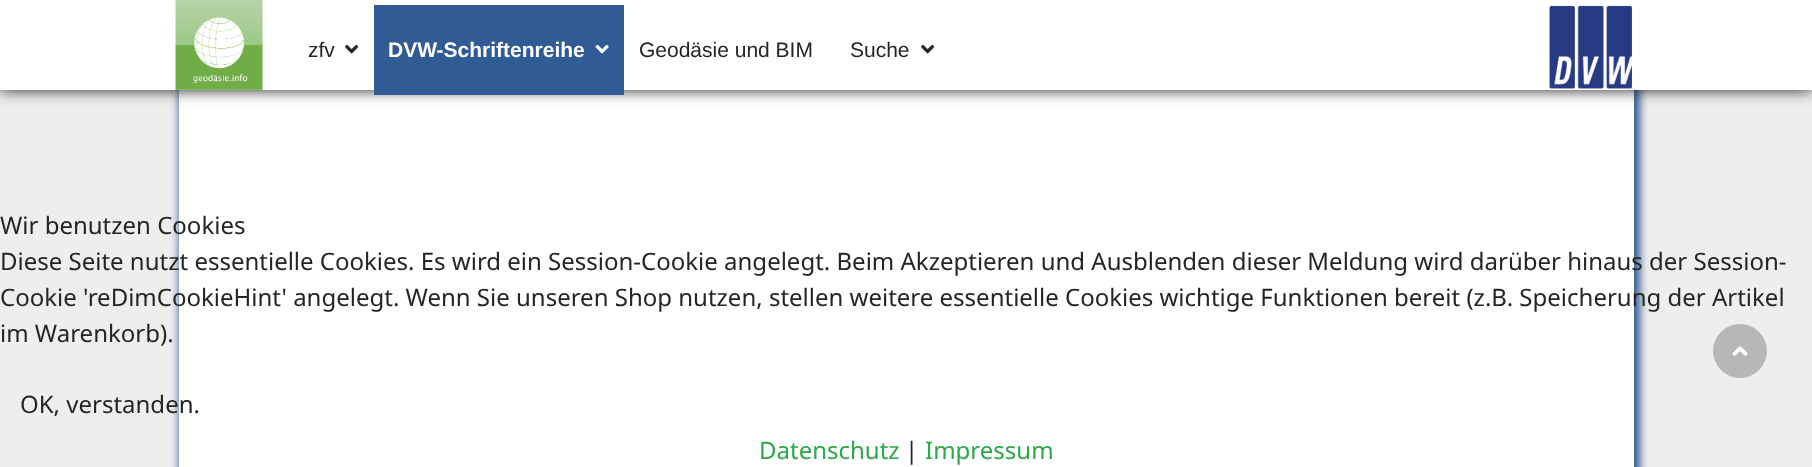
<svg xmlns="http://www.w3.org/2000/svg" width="1812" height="467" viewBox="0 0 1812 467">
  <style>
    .t1 { font: 21px Liberation Sans; fill: #252525; }
    .t2 { font: bold 21px Liberation Sans; fill: #fff; }
    .t3 { font: 24px Noto Sans; fill: #252525; }
    .t4 { font: 24px Noto Sans; fill: #2ba84a; }
  </style>
  <rect width="100%" height="100%" fill="#eee"/>
  <rect x="179" y="-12" width="1461" height="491" fill="#305b95" filter="blur(4px)"/>
  <rect x="179" y="90" width="1455" height="377" fill="#fff"/>
  <rect x="0" y="0" width="1812" height="90" fill="#202020" filter="blur(7.5px)"/>
  <rect x="0" y="0" width="1812" height="90" fill="#fff"/>
  <image x="175" y="0" width="88" height="90" href="images/1.png"/>
  <text x="308" y="57" class="t1">zfv</text>
  <image x="345" y="44" width="14" height="10" href="images/2.png"/>
  <rect x="374" y="5" width="250" height="90" fill="#305b95"/>
  <text x="388" y="57" class="t2">DVW-Schriftenreihe</text>
  <image x="595" y="44" width="14" height="10" href="images/3.png"/>
  <text x="639" y="57" class="t1">Geodäsie und BIM</text>
  <text x="850" y="57" class="t1">Suche</text>
  <image x="921" y="44" width="14" height="10" href="images/2.png"/>
  <image x="1549" y="5" width="83" height="84" href="images/4.png"/>
  <text x="0" y="234" class="t3">Wir benutzen Cookies</text>
  <text x="0" y="270" class="t3">Diese Seite nutzt essentielle Cookies. Es wird ein Session-Cookie angelegt. Beim Akzeptieren und Ausblenden dieser Meldung wird darüber hinaus der Session-</text>
  <text x="0" y="306" class="t3">Cookie 'reDimCookieHint' angelegt. Wenn Sie unseren Shop nutzen, stellen weitere essentielle Cookies wichtige Funktionen bereit (z.B. Speicherung der Artikel</text>
  <text x="0" y="342" class="t3">im Warenkorb).</text>
  <text x="20" y="413" class="t3">OK, verstanden.</text>
  <text x="759" y="459" class="t4">Datenschutz</text>
  <text x="905" y="459" class="t3">|</text>
  <text x="925" y="459" class="t4">Impressum</text>
  <circle cx="1740" cy="351" r="27" fill="#b7b7b7"/>
  <image x="1732" y="346" width="16" height="10" href="images/5.png"/>
</svg>
